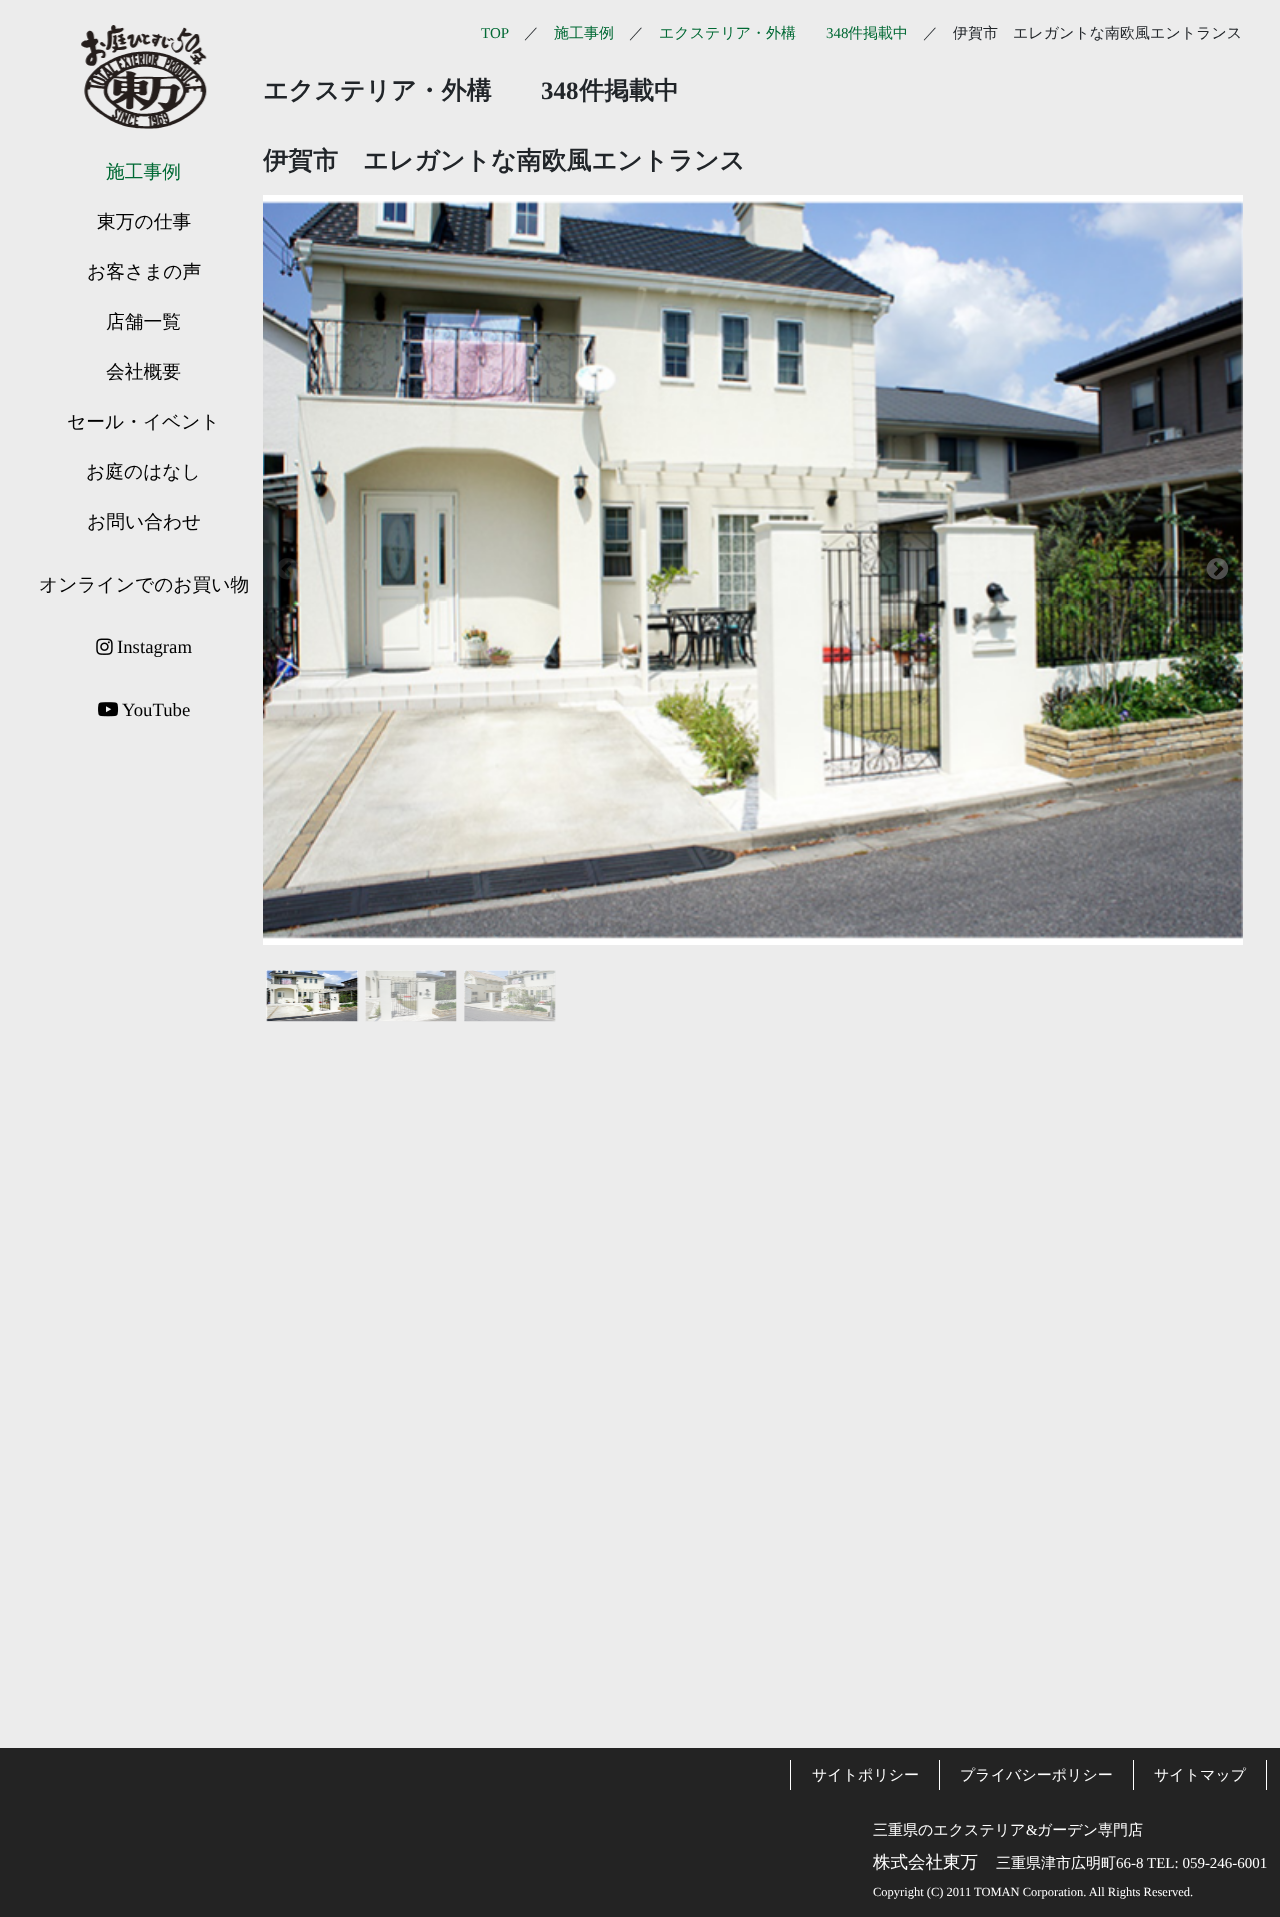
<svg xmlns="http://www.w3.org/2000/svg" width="1280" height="1917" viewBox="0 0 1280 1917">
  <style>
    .t1 { font: 15px Liberation Serif; fill: #006934; }
    .t2 { font: 500 15px WenQuanYi Zen Hei; fill: #212529; }
    .t3 { font: 500 15px WenQuanYi Zen Hei; fill: #006934; }
    .t4 { font: bold 25px WenQuanYi Zen Hei; fill: #212529; }
    .t5 { font: bold 25px Liberation Serif; fill: #212529; }
    .t6 { font: 500 18.75px WenQuanYi Zen Hei; fill: #006934; }
    .t7 { font: 500 18.75px WenQuanYi Zen Hei; fill: #000; }
    .t8 { font: 18.75px Liberation Serif; fill: #000; }
    .t9 { font: 500 15px WenQuanYi Zen Hei; fill: #fff; }
    .t10 { font: 15px Liberation Serif; fill: #fff; }
    .t11 { font: 500 17.5px WenQuanYi Zen Hei; fill: #fff; }
    .t12 { font: 12.5px Liberation Serif; fill: #fff; }
  </style>
  <rect width="100%" height="100%" fill="#ececec"/>
  <text x="481" y="38" class="t1">TOP</text>
  <text x="524" y="38" class="t2">／</text>
  <text x="554" y="38" class="t3">施工事例</text>
  <text x="629" y="38" class="t2">／</text>
  <text x="659" y="38" class="t3">エクステリア・外構</text>
  <text x="826" y="38" class="t1">348</text>
  <text x="848" y="38" class="t3">件掲載中</text>
  <text x="923" y="38" class="t2">／</text>
  <text x="953" y="38" class="t2">伊賀市　エレガントな南欧風エントランス</text>
  <text x="263" y="99" class="t4">エクステリア・外構</text>
  <text x="541" y="99" class="t5">348</text>
  <text x="579" y="99" class="t4">件掲載中</text>
  <text x="263" y="169" class="t4">伊賀市　エレガントな南欧風エントランス</text>
  <rect x="263" y="195" width="980" height="750" fill="#fff"/>
  <image x="263" y="201" width="980" height="738" href="images/1.png"/>
  <image x="277" y="558" width="22" height="22" href="images/2.png"/>
  <image x="1206" y="558" width="23" height="22" href="images/3.png"/>
  <rect x="266" y="970" width="92" height="51" fill="#fff"/>
  <image x="266" y="970" width="93" height="52" href="images/4.png"/>
  <rect x="365" y="970" width="91" height="51" fill="#f6f6f6"/>
  <image x="365" y="970" width="92" height="52" href="images/5.png"/>
  <rect x="464" y="970" width="91" height="51" fill="#f6f6f6"/>
  <image x="464" y="970" width="92" height="52" href="images/6.png"/>
  <rect x="262" y="159" width="1" height="2" fill="#ecececcc"/>
  <image x="81" y="25" width="126" height="104" href="images/7.png"/>
  <text x="106" y="178" class="t6">施工事例</text>
  <text x="97" y="228" class="t7">東万の仕事</text>
  <text x="87" y="278" class="t7">お客さまの声</text>
  <text x="106" y="328" class="t7">店舗一覧</text>
  <text x="106" y="378" class="t7">会社概要</text>
  <text x="67" y="428" class="t7">セール・イベント</text>
  <text x="86" y="478" class="t7">お庭のはなし</text>
  <text x="87" y="528" class="t7">お問い合わせ</text>
  <text x="39" y="591" class="t7">オンラインでのお買い物</text>
  <image x="96" y="638" width="17" height="17" href="images/8.png"/>
  <text x="117" y="653" class="t8">Instagram</text>
  <image x="98" y="702" width="21" height="15" href="images/9.png"/>
  <text x="122" y="716" class="t8">YouTube</text>
  <rect x="0" y="1748" width="1280" height="169" fill="#232323"/>
  <rect x="790" y="1760" width="1" height="30" fill="#fff"/>
  <rect x="939" y="1760" width="1" height="30" fill="#fff"/>
  <text x="812" y="1780" class="t9">サイトポリシー</text>
  <rect x="1133" y="1760" width="1" height="30" fill="#fff"/>
  <text x="960" y="1780" class="t9">プライバシーポリシー</text>
  <rect x="1266" y="1760" width="1" height="30" fill="#fff"/>
  <text x="1154" y="1780" class="t9">サイトマップ</text>
  <text x="873" y="1835" class="t9">三重県のエクステリア</text>
  <text x="1026" y="1835" class="t10">&amp;</text>
  <text x="1037" y="1835" class="t9">ガーデン専門店</text>
  <text x="873" y="1868" class="t11">株式会社東万</text>
  <text x="996" y="1868" class="t9">三重県津市広明町</text>
  <text x="1116" y="1868" class="t10">66-8 TEL: 059-246-6001</text>
  <text x="873" y="1896" class="t12">Copyright (C) 2011 TOMAN Corporation. All Rights Reserved.</text>
</svg>
